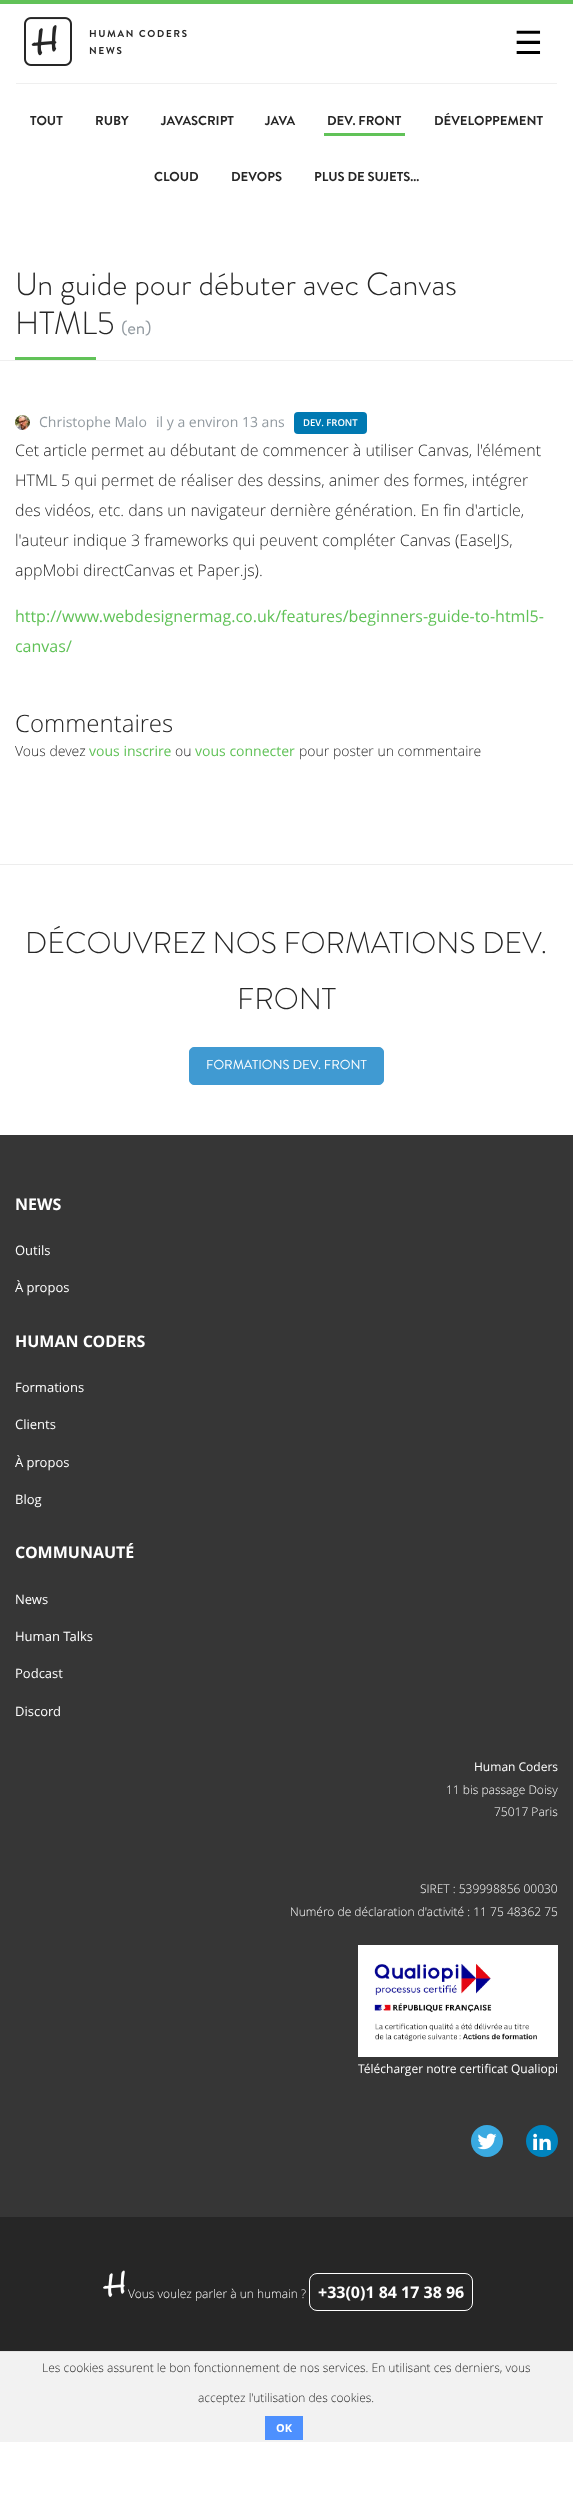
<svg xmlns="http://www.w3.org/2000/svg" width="573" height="2515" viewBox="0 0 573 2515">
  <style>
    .t1 { font: 32px DejaVu Sans; fill: #000; }
    .t2 { font: bold 13px Brandon Grotesque; fill: #262626; }
    .t3 { font: 300 32px Brandon Grotesque; fill: #262626; }
    .t4 { font: 19px Brandon Grotesque; fill: #929aa0; }
    .t5 { font: 14px Open Sans; fill: #929aa0; }
    .t6 { font: 600 9.5px Open Sans; fill: #fff; }
    .t7 { font: 300 16px Open Sans; fill: #262626; }
    .t8 { font: 16px Open Sans; fill: #61c258; }
    .t9 { font: 300 24px Open Sans; fill: #262626; }
    .t10 { font: 300 14px Open Sans; fill: #262626; }
    .t11 { font: 14px Open Sans; fill: #61c258; }
    .t12 { font: 300 30px Brandon Grotesque; fill: #262626; }
    .t13 { font: 13px Brandon Grotesque; fill: #fff; }
    .t14 { font: bold 16px Open Sans; fill: #fff; }
    .t15 { font: 13px Open Sans; fill: #fff; }
    .t16 { font: 12px Open Sans; fill: #fff; }
    .t17 { font: 300 12px Open Sans; fill: #fff; }
    .t18 { font: 300 12px Open Sans; fill: #262626; }
    .t19 { font: bold 11px Open Sans; fill: #fff; }
  </style>
  <rect width="100%" height="100%" fill="#fff"/>
  <rect x="0" y="0" width="573" height="4" fill="#61c258"/>
  <rect x="16" y="83" width="541" height="1" fill="#efefef"/>
  <image x="24" y="17" width="163" height="49" href="images/1.png"/>
  <text x="514" y="54" class="t1">☰</text>
  <text x="30" y="125" class="t2">TOUT</text>
  <text x="95" y="125" class="t2">RUBY</text>
  <text x="161" y="125" class="t2">JAVASCRIPT</text>
  <text x="265" y="125" class="t2">JAVA</text>
  <text x="327" y="125" class="t2">DEV. FRONT</text>
  <rect x="324" y="133" width="81" height="3" fill="#61c258"/>
  <text x="434" y="125" class="t2">DÉVELOPPEMENT</text>
  <text x="154" y="181" class="t2">CLOUD</text>
  <text x="231" y="181" class="t2">DEVOPS</text>
  <text x="314" y="181" class="t2">PLUS DE SUJETS...</text>
  <text x="15" y="295" class="t3">Un guide pour débuter avec Canvas</text>
  <text x="15" y="334" class="t3">HTML5</text>
  <text x="121" y="334" class="t4">(en)</text>
  <rect x="15" y="357" width="81" height="3" fill="#61c258"/>
  <rect x="0" y="360" width="573" height="1" fill="#efefef"/>
  <image x="15" y="415" width="15" height="15" href="images/2.png"/>
  <text x="39" y="427" class="t5">Christophe Malo</text>
  <text x="156" y="427" class="t5">il y a environ 13 ans</text>
  <rect x="294" y="412" width="73" height="22" rx="4" fill="#0079b2"/>
  <text x="303" y="426" class="t6">DEV. FRONT</text>
  <text x="15" y="456" class="t7">Cet article permet au débutant de commencer à utiliser Canvas, l'élément</text>
  <text x="15" y="486" class="t7">HTML 5 qui permet de réaliser des dessins, animer des formes, intégrer</text>
  <text x="15" y="516" class="t7">des vidéos, etc. dans un navigateur dernière génération. En fin d'article,</text>
  <text x="15" y="546" class="t7">l'auteur indique 3 frameworks qui peuvent compléter Canvas (EaselJS,</text>
  <text x="15" y="576" class="t7">appMobi directCanvas et Paper.js).</text>
  <text x="15" y="622" class="t8">http://www.webdesignermag.co.uk/features/beginners-guide-to-html5-</text>
  <text x="15" y="652" class="t8">canvas/</text>
  <text x="15" y="732" class="t9">Commentaires</text>
  <text x="15" y="756" class="t10">Vous devez</text>
  <text x="89" y="756" class="t11">vous inscrire</text>
  <text x="175" y="756" class="t10">ou</text>
  <text x="195" y="756" class="t11">vous connecter</text>
  <text x="299" y="756" class="t10">pour poster un commentaire</text>
  <rect x="0" y="864" width="573" height="1" fill="#ededed"/>
  <text x="25" y="953" class="t12">DÉCOUVREZ NOS FORMATIONS DEV.</text>
  <text x="237" y="1009" class="t12">FRONT</text>
  <rect x="189.5" y="1047.5" width="194" height="37" rx="4.5" fill="#409ad2" stroke="#409ad2"/>
  <text x="206" y="1069" class="t13">FORMATIONS DEV. FRONT</text>
  <rect x="0" y="1135" width="573" height="1082" fill="#363636"/>
  <text x="15" y="1210" class="t14">NEWS</text>
  <text x="15" y="1255" class="t15">Outils</text>
  <text x="15" y="1292" class="t15">À propos</text>
  <text x="15" y="1347" class="t14">HUMAN CODERS</text>
  <text x="15" y="1392" class="t15">Formations</text>
  <text x="15" y="1429" class="t15">Clients</text>
  <text x="15" y="1467" class="t15">À propos</text>
  <text x="15" y="1504" class="t15">Blog</text>
  <text x="15" y="1558" class="t14">COMMUNAUTÉ</text>
  <text x="15" y="1604" class="t15">News</text>
  <text x="15" y="1641" class="t15">Human Talks</text>
  <text x="15" y="1678" class="t15">Podcast</text>
  <text x="15" y="1716" class="t15">Discord</text>
  <text x="474" y="1771" class="t16">Human Coders</text>
  <text x="446" y="1794" class="t17">11 bis passage Doisy</text>
  <text x="494" y="1816" class="t17">75017 Paris</text>
  <text x="420" y="1893" class="t17">SIRET : 539998856 00030</text>
  <text x="290" y="1916" class="t17">Numéro de déclaration d'activité : 11 75 48362 75</text>
  <image x="358" y="1945" width="200" height="112" href="images/3.png"/>
  <text x="358" y="2073" class="t16">Télécharger notre certificat Qualiopi</text>
  <circle cx="487" cy="2141" r="16" fill="#3aaae1"/>
  <image x="477" y="2133" width="20" height="17" href="images/4.png"/>
  <circle cx="542" cy="2141" r="16" fill="#0084bf"/>
  <image x="533" y="2133" width="18" height="17" href="images/5.png"/>
  <rect x="0" y="2217" width="573" height="134" fill="#262626"/>
  <image x="103" y="2270" width="22" height="27" href="images/6.png"/>
  <text x="128" y="2298" class="t17">Vous voulez parler à un humain ?</text>
  <rect x="309.5" y="2273.5" width="163" height="37" rx="7.5" fill="none" stroke="#fff"/>
  <text x="318" y="2298" class="t14">+33(0)1 84 17 38 96</text>
  <rect x="0" y="2352" width="573" height="90" fill="#f2f2f2"/>
  <rect x="0" y="2351" width="573" height="1" fill="#e4e4e4"/>
  <text x="42" y="2372" class="t18">Les cookies assurent le bon fonctionnement de nos services. En utilisant ces derniers, vous</text>
  <text x="198" y="2402" class="t18">acceptez l'utilisation des cookies.</text>
  <rect x="265" y="2416" width="38" height="24" fill="#4d90fe"/>
  <text x="276" y="2432" class="t19">OK</text>
</svg>
